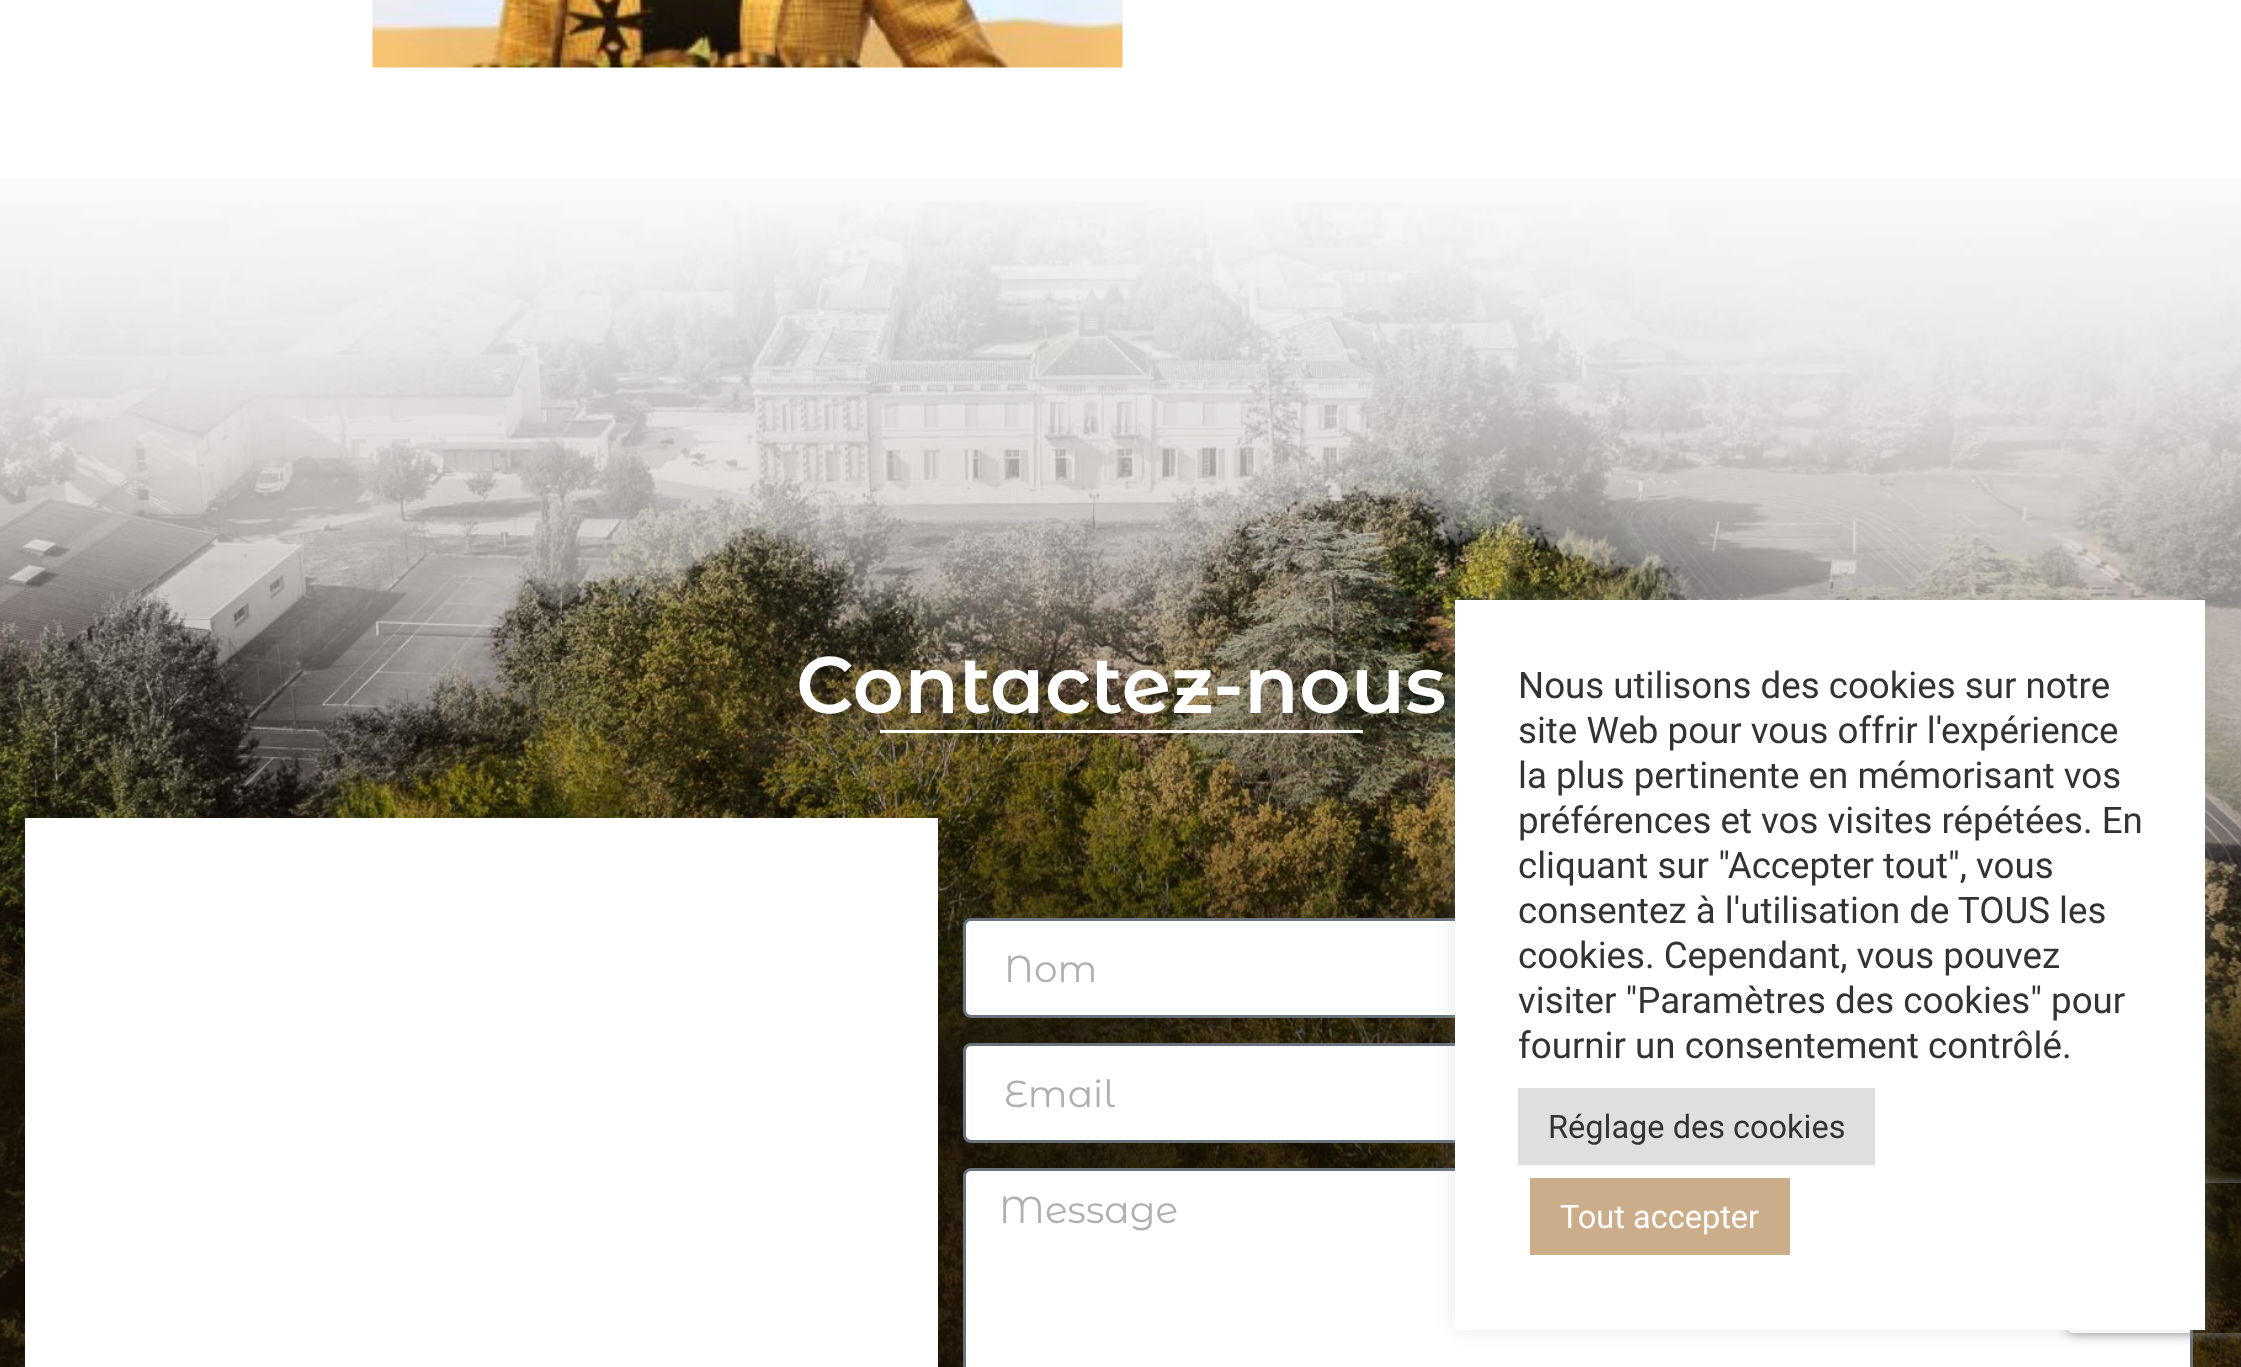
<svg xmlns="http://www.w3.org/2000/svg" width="2241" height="1367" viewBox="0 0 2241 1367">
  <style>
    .t1 { font: 600 80px Montserrat Alternates; fill: #fff; }
    .t2 { font: 37.5px Montserrat Alternates; fill: #afafaf; }
    .t3 { font: 36.7px Roboto; fill: #333; }
    .t4 { font: 32.5px Roboto; fill: #333; }
    .t5 { font: 32.5px Roboto; fill: #fff; }
  </style>
  <defs>
    <linearGradient id="g1" gradientUnits="userSpaceOnUse" x1="1121" y1="120" x2="1121" y2="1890"><stop offset="0" stop-color="#281104" stop-opacity="0"/><stop offset="1" stop-color="#281104" stop-opacity="0.65"/></linearGradient>
    <clipPath id="clip1"><path d="M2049 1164H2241V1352H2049ZM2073 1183H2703C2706 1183 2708 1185 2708 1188V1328C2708 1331 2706 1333 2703 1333H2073C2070 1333 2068 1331 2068 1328V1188C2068 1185 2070 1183 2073 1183Z" clip-rule="evenodd"/></clipPath>
  </defs>
  <rect width="100%" height="100%" fill="#fff"/>
  <image x="372" y="0" width="751" height="68" href="images/1.png"/>
  <image x="0" y="202" width="2241" height="1165" href="images/2.png"/>
  <rect x="0" y="179" width="2241" height="1188" fill="url(#g1)"/>
  <text x="796" y="713" class="t1">Contactez-nous</text>
  <rect x="880" y="730" width="483" height="3" fill="#fff"/>
  <rect x="25" y="818" width="913" height="549" fill="#fff"/>
  <rect x="964.5" y="919.5" width="599" height="97" rx="6.5" fill="#fff" stroke="#69727d" stroke-width="3"/>
  <text x="1004" y="982" class="t2">Nom</text>
  <rect x="964.5" y="1044.5" width="1227" height="97" rx="6.5" fill="#fff" stroke="#69727d" stroke-width="3"/>
  <text x="1004" y="1107" class="t2">Email</text>
  <rect x="964.5" y="1169.5" width="1227" height="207" rx="6.5" fill="#fff" stroke="#69727d" stroke-width="3"/>
  <text x="999" y="1223" class="t2">Message</text>
  <g clip-path="url(#clip1)">
    <rect x="2068" y="1183" width="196" height="150" rx="5" fill="#808080" filter="blur(6px)"/>
  </g>
  <rect x="1455" y="598" width="750" height="730" fill="#acabab4d" filter="blur(12.5px)"/>
  <rect x="1455" y="600" width="750" height="730" fill="#fff"/>
  <text x="1518" y="698" class="t3">Nous utilisons des cookies sur notre</text>
  <text x="1518" y="743" class="t3">site Web pour vous offrir l'expérience</text>
  <text x="1518" y="788" class="t3">la plus pertinente en mémorisant vos</text>
  <text x="1518" y="833" class="t3">préférences et vos visites répétées. En</text>
  <text x="1518" y="878" class="t3">cliquant sur "Accepter tout", vous</text>
  <text x="1518" y="923" class="t3">consentez à l'utilisation de TOUS les</text>
  <text x="1518" y="968" class="t3">cookies. Cependant, vous pouvez</text>
  <text x="1518" y="1013" class="t3">visiter "Paramètres des cookies" pour</text>
  <text x="1518" y="1058" class="t3">fournir un consentement contrôlé.</text>
  <rect x="1518" y="1088" width="357" height="77" fill="#dedfe0"/>
  <text x="1548" y="1138" class="t4">Réglage des cookies</text>
  <rect x="1530" y="1178" width="260" height="77" fill="#ccad89"/>
  <text x="1560" y="1228" class="t5">Tout accepter</text>
</svg>
